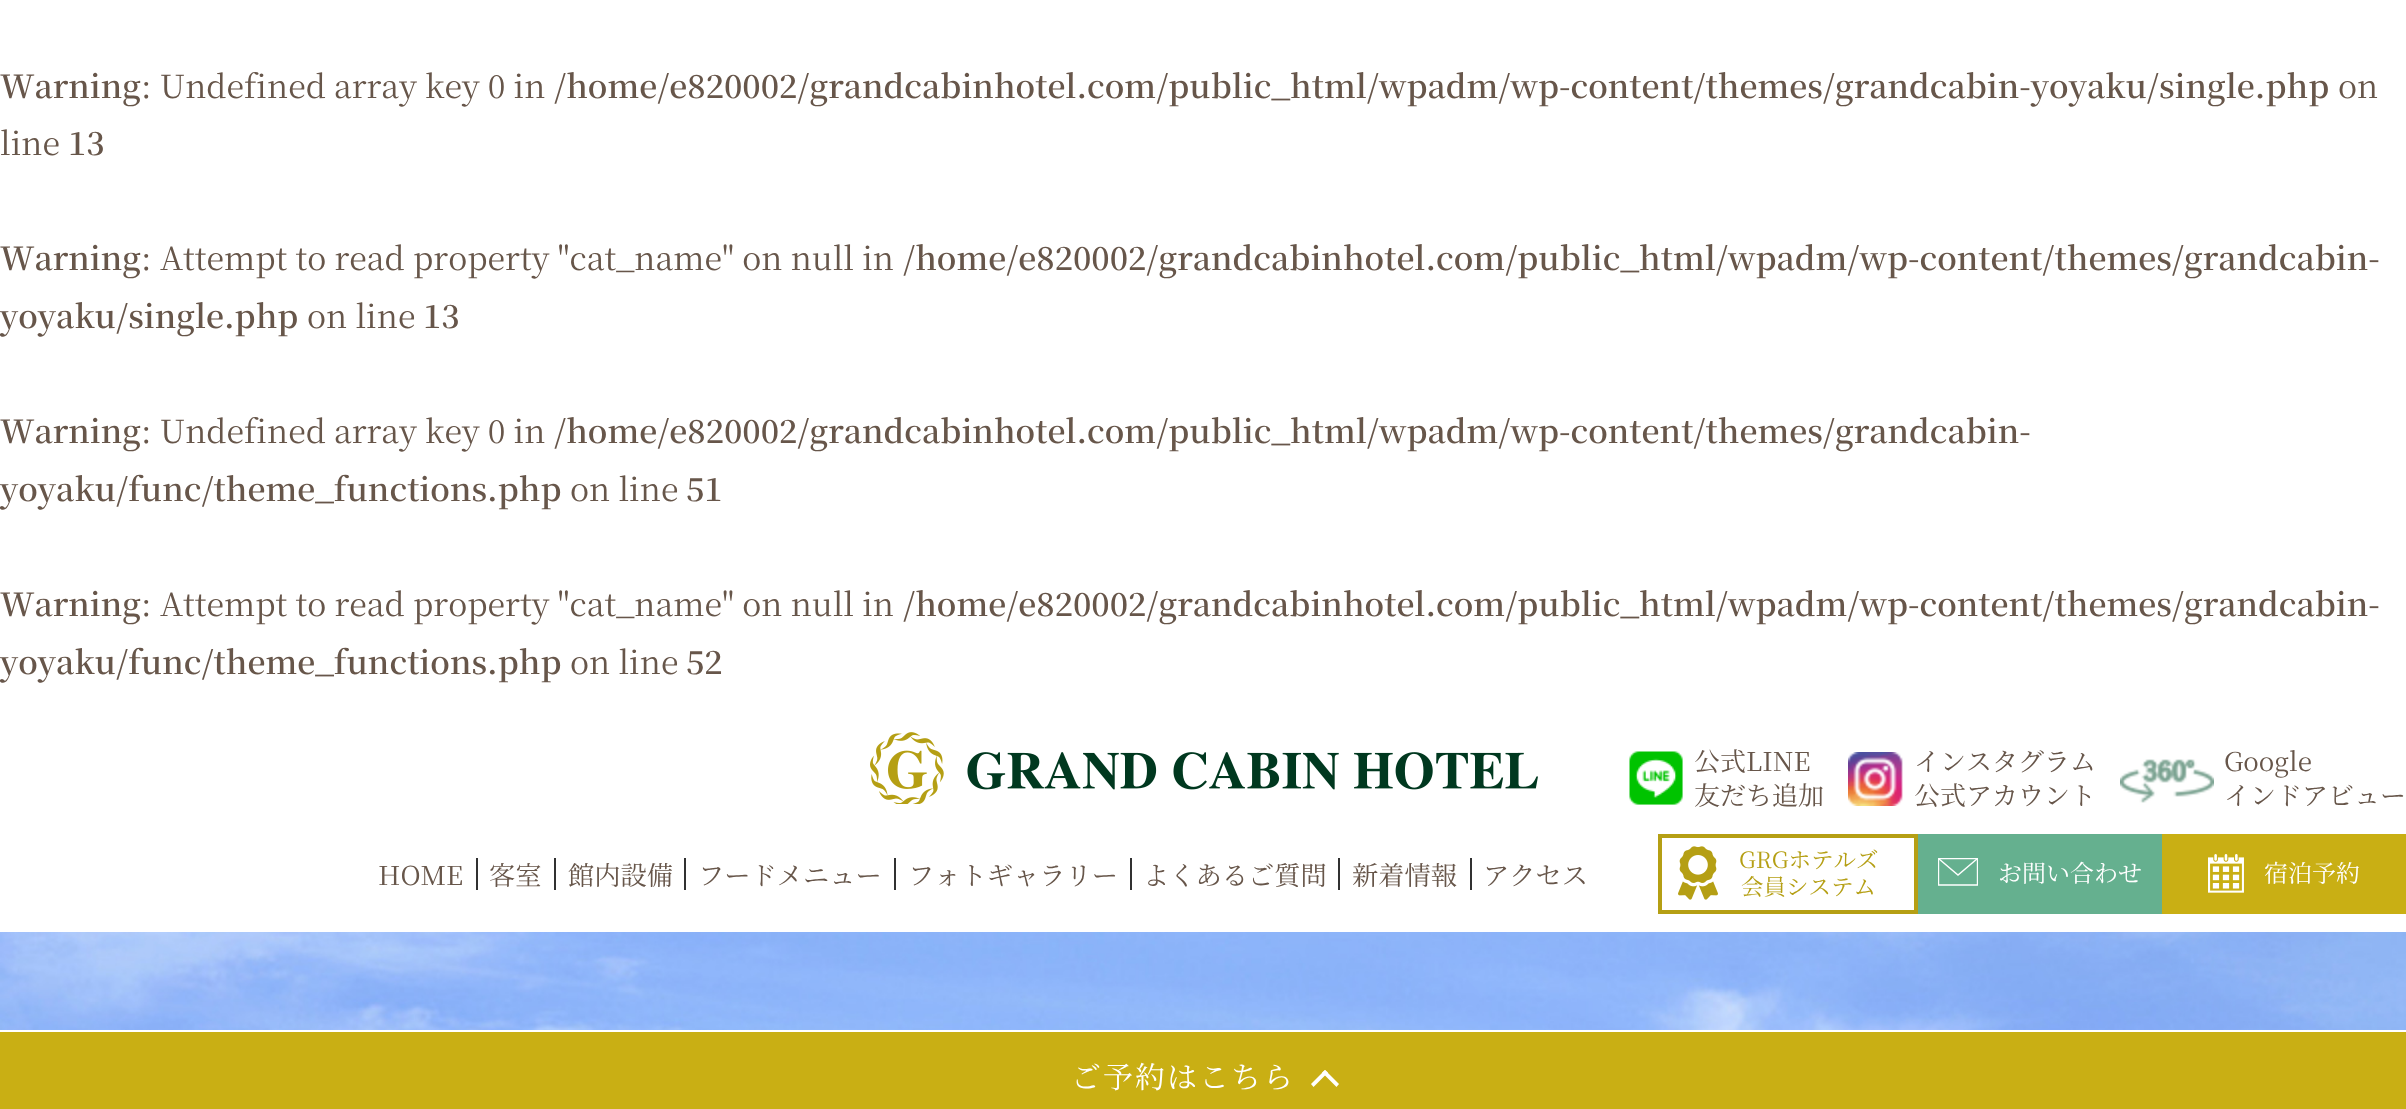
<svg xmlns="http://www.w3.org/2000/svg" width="2406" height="1109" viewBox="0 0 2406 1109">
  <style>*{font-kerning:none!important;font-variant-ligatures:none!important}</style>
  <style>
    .t1 { font: 600 32px Noto Serif JP; fill: #67564a; }
    .t2 { font: 32px Noto Serif JP; fill: #67564a; }
    .t3 { font: 26px Noto Serif JP; fill: #67564a; }
    .t4 { font: 26.25px Noto Serif JP; fill: #67564a; }
    .t5 { font: 22.5px Noto Serif JP; fill: #b59f14; }
    .t6 { font: 24px Noto Serif JP; fill: #fff; }
    .t7 { font: 30px Noto Serif JP; letter-spacing: 2px; fill: #fff; }
  </style>
  <defs>
    <clipPath id="clip1"><rect x="1938" y="858" width="40" height="28"/></clipPath>
  </defs>
  <rect width="100%" height="100%" fill="#fff"/>
  <text x="0" y="98" class="t1">Warning</text>
  <text x="141" y="98" class="t2">: Undefined array key 0 in</text>
  <text x="554" y="98" class="t1">/home/e820002/grandcabinhotel.com/public_html/wpadm/wp-content/themes/grandcabin-yoyaku/single.php</text>
  <text x="2338" y="98" class="t2">on</text>
  <text x="0" y="155" class="t2">line</text>
  <text x="68" y="155" class="t1">13</text>
  <text x="0" y="270" class="t1">Warning</text>
  <text x="141" y="270" class="t2">:</text>
  <text x="160" y="270" class="t2">Attempt to read property "cat_name" on null in</text>
  <text x="903" y="270" class="t1">/home/e820002/grandcabinhotel.com/public_html/wpadm/wp-content/themes/grandcabin-</text>
  <text x="0" y="328" class="t1">yoyaku/single.php</text>
  <text x="307" y="328" class="t2">on line</text>
  <text x="423" y="328" class="t1">13</text>
  <text x="0" y="443" class="t1">Warning</text>
  <text x="141" y="443" class="t2">: Undefined array key 0 in</text>
  <text x="554" y="443" class="t1">/home/e820002/grandcabinhotel.com/public_html/wpadm/wp-content/themes/grandcabin-</text>
  <text x="0" y="501" class="t1">yoyaku/func/theme_functions.php</text>
  <text x="570" y="501" class="t2">on line</text>
  <text x="686" y="501" class="t1">51</text>
  <text x="0" y="616" class="t1">Warning</text>
  <text x="141" y="616" class="t2">:</text>
  <text x="160" y="616" class="t2">Attempt to read property "cat_name" on null in</text>
  <text x="903" y="616" class="t1">/home/e820002/grandcabinhotel.com/public_html/wpadm/wp-content/themes/grandcabin-</text>
  <text x="0" y="674" class="t1">yoyaku/func/theme_functions.php</text>
  <text x="570" y="674" class="t2">on line</text>
  <text x="686" y="674" class="t1">52</text>
  <image x="870" y="732" width="668" height="72" href="images/1.png"/>
  <image x="1629" y="751" width="54" height="54" href="images/2.png"/>
  <text x="1694" y="771" class="t3">公式LINE</text>
  <text x="1694" y="805" class="t3">友だち追加</text>
  <image x="1848" y="752" width="55" height="54" href="images/3.png"/>
  <text x="1914" y="771" class="t3">インスタグラム</text>
  <text x="1914" y="805" class="t3">公式アカウント</text>
  <image x="2120" y="759" width="94" height="44" href="images/4.png"/>
  <text x="2224" y="771" class="t3">Google</text>
  <text x="2224" y="805" class="t3">インドアビュー</text>
  <rect x="476" y="858" width="2" height="32" fill="#313131"/>
  <text x="378" y="885" class="t4">HOME</text>
  <rect x="554" y="858" width="2" height="32" fill="#313131"/>
  <text x="489" y="885" class="t4">客室</text>
  <rect x="684" y="858" width="2" height="32" fill="#313131"/>
  <text x="568" y="885" class="t4">館内設備</text>
  <rect x="894" y="858" width="2" height="32" fill="#313131"/>
  <text x="698" y="885" class="t4">フードメニュー</text>
  <rect x="1130" y="858" width="2" height="32" fill="#313131"/>
  <text x="908" y="885" class="t4">フォトギャラリー</text>
  <rect x="1338" y="858" width="2" height="32" fill="#313131"/>
  <text x="1143" y="885" class="t4">よくあるご質問</text>
  <rect x="1470" y="858" width="2" height="32" fill="#313131"/>
  <text x="1352" y="885" class="t4">新着情報</text>
  <text x="1483" y="885" class="t4">アクセス</text>
  <rect x="1660" y="836" width="256" height="76" fill="none" stroke="#b59f14" stroke-width="4"/>
  <image x="1678" y="846" width="40" height="54" href="images/5.png"/>
  <text x="1739" y="868" class="t5">GRGホテルズ</text>
  <text x="1741" y="895" class="t5">会員システム</text>
  <rect x="1918" y="834" width="244" height="80" fill="#65b08f"/>
  <g clip-path="url(#clip1)">
    <path d="M1938.5 858.5H1977.5V885H1938.5Z" fill="none" stroke="#fff" stroke-width="1.4"/>
  </g>
  <path d="M1938.5 858.5L1958 875L1977.5 858.5" fill="none" stroke="#fff" stroke-width="1.4"/>
  <text x="1998" y="882" class="t6">お問い合わせ</text>
  <rect x="2162" y="834" width="244" height="80" fill="#c9af14"/>
  <image x="2208" y="854" width="36" height="39" href="images/6.png"/>
  <text x="2264" y="882" class="t6">宿泊予約</text>
  <image x="0" y="932" width="2406" height="98" href="images/7.png"/>
  <rect x="0" y="1032" width="2406" height="77" fill="#c9af14"/>
  <text x="1071" y="1088" class="t7">ご予約はこちら</text>
  <path d="M1325 1070L1339 1084L1336.5 1087L1322 1072.5Z" fill="#fff"/>
  <path d="M1325 1070L1328 1072.5L1313.5 1087L1311 1084Z" fill="#fff"/>
</svg>
